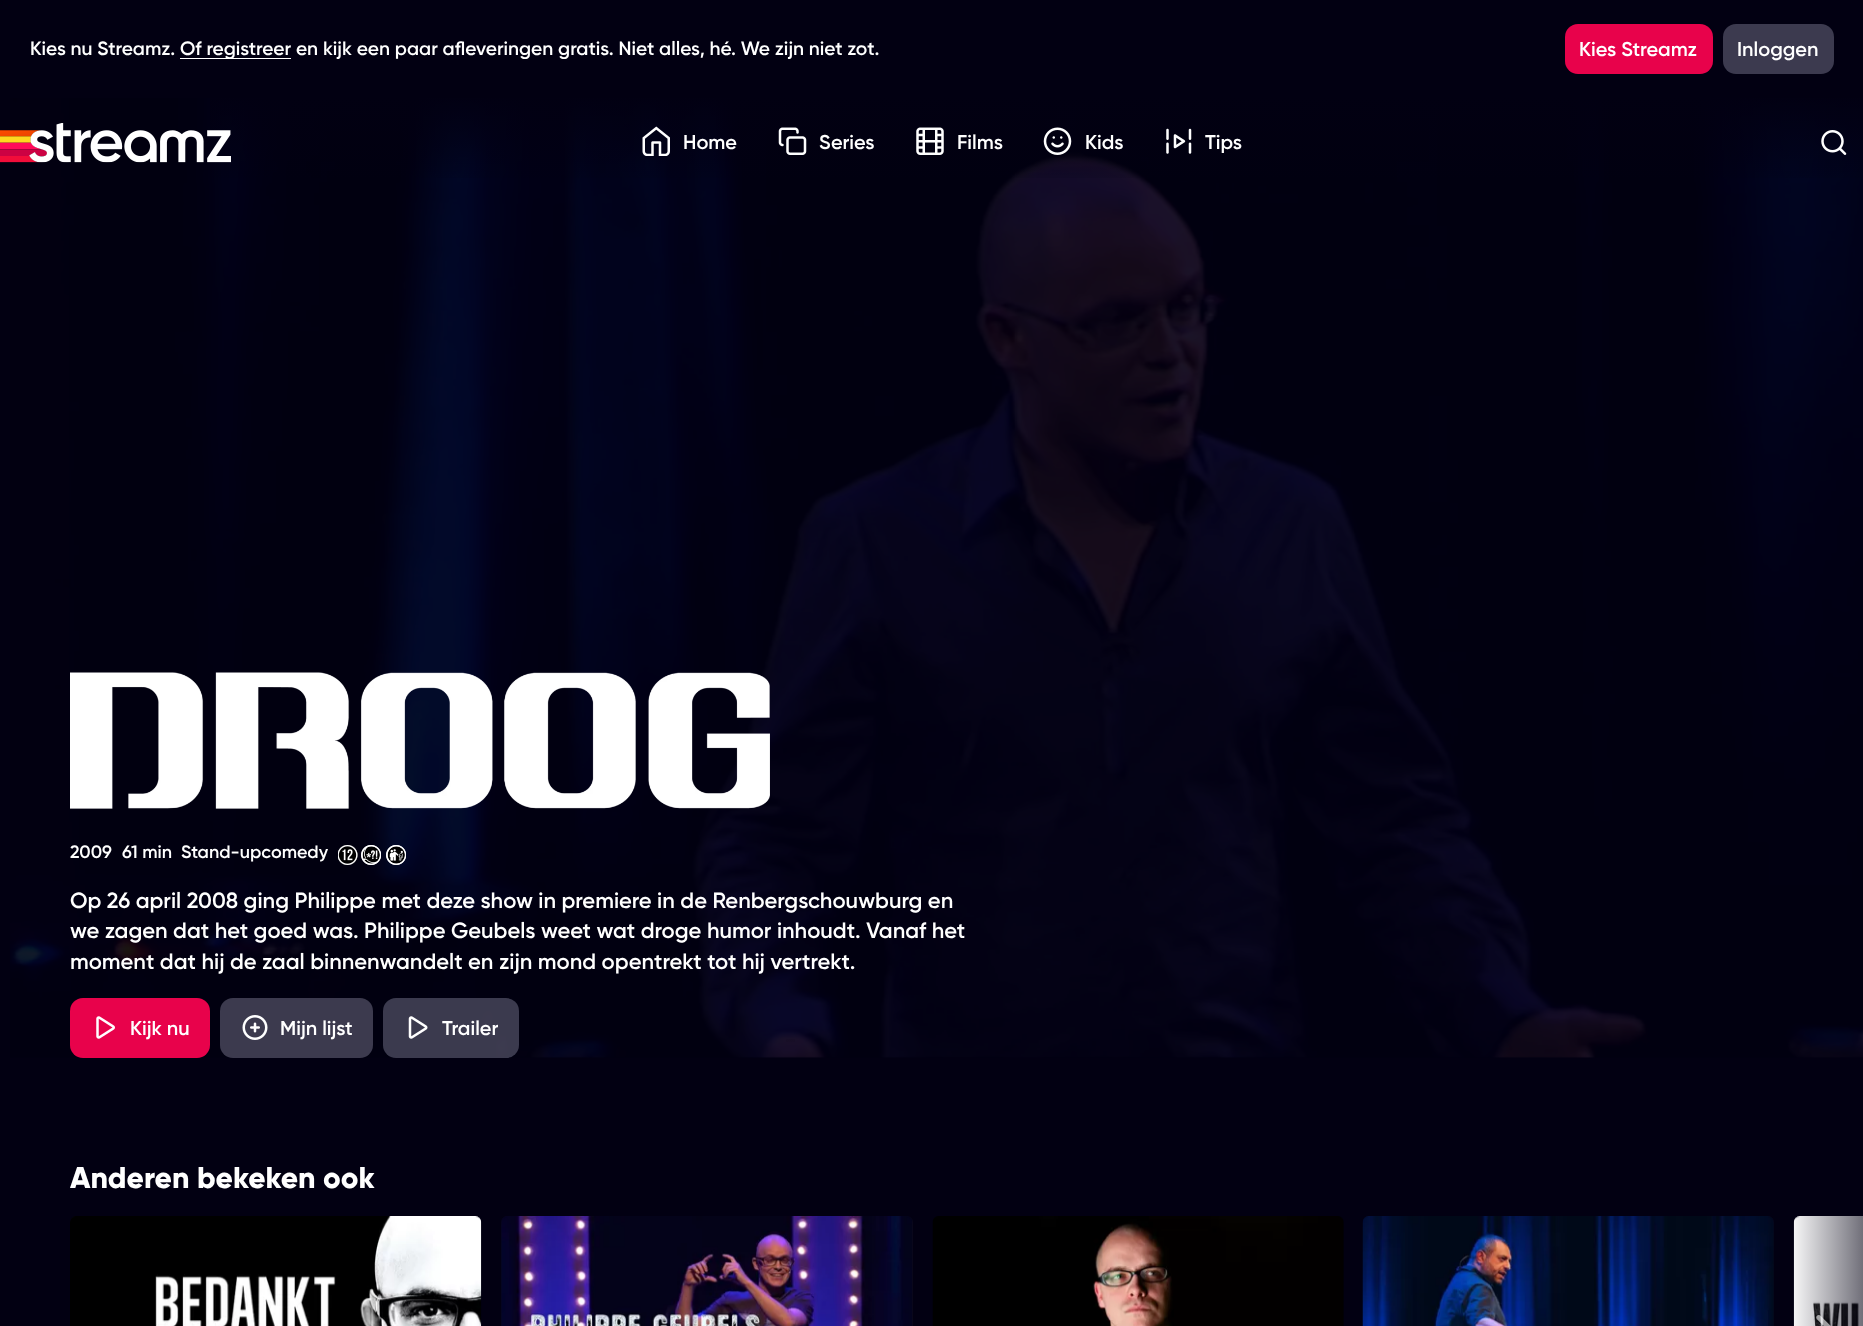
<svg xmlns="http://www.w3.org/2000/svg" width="1863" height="1326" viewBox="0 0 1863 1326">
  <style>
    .t1 { font: 600 19.25px Gilroy; fill: #fff; }
    .t2 { font: 600 20px Gilroy; fill: #fff; }
    .t3 { font: 600 18px Gilroy; fill: #fff; }
    .t4 { font: 600 22px Gilroy; fill: #fff; }
    .t5 { font: 800 30px Gilroy; fill: #fff; }
  </style>
  <defs>
    <linearGradient id="g1" gradientUnits="userSpaceOnUse" x1="932" y1="97" x2="932" y2="188"><stop offset="0" stop-color="#020012" stop-opacity="0.95"/><stop offset="1" stop-color="#020012" stop-opacity="0"/></linearGradient>
    <linearGradient id="g2" gradientUnits="userSpaceOnUse" x1="932" y1="97" x2="932" y2="1058"><stop offset="0" stop-color="#020012" stop-opacity="0"/><stop offset="0.5" stop-color="#020012" stop-opacity="0"/><stop offset="1" stop-color="#020012" stop-opacity="0.1"/></linearGradient>
    <linearGradient id="g3" gradientUnits="userSpaceOnUse" x1="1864" y1="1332" x2="1789" y2="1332"><stop offset="0" stop-color="#020012" stop-opacity="0.57"/><stop offset="1" stop-color="#020012" stop-opacity="0"/></linearGradient>
  </defs>
  <rect width="100%" height="100%" fill="#020012"/>
  <text x="30" y="55" class="t1">Kies nu Streamz.</text>
  <rect x="180" y="58" width="111" height="1" fill="#fff"/>
  <text x="180" y="55" class="t1">Of registreer en kijk een paar afleveringen gratis. Niet alles, hé. We zijn niet zot.</text>
  <rect x="1565" y="24" width="148" height="50" rx="13" fill="#e8024b"/>
  <text x="1579" y="56" class="t2">Kies Streamz</text>
  <rect x="1723" y="24" width="111" height="50" rx="13" fill="#3c3a4f"/>
  <text x="1737" y="56" class="t2">Inloggen</text>
  <image x="10" y="98" width="1853" height="960" href="images/8.png"/>
  <rect x="210" y="98" width="1653" height="80" fill="url(#g1)"/>
  <image x="0" y="123" width="231" height="40" href="images/1.png"/>
  <image x="642" y="126" width="28" height="30" href="images/2.png"/>
  <text x="683" y="149" class="t2">Home</text>
  <image x="778" y="127" width="29" height="28" href="images/3.png"/>
  <text x="819" y="149" class="t2">Series</text>
  <image x="916" y="127" width="28" height="28" href="images/4.png"/>
  <text x="957" y="149" class="t2">Films</text>
  <image x="1043" y="127" width="29" height="28" href="images/5.png"/>
  <text x="1085" y="149" class="t2">Kids</text>
  <image x="1166" y="128" width="26" height="26" href="images/6.png"/>
  <text x="1205" y="149" class="t2">Tips</text>
  <image x="1821" y="130" width="26" height="25" href="images/7.png"/>
  <rect x="786" y="1039" width="9" height="3" fill="url(#g2)"/>
  <image x="70" y="672" width="700" height="137" href="images/9.png"/>
  <text x="70" y="858" class="t3">2009</text>
  <text x="122" y="858" class="t3">61 min</text>
  <text x="181" y="858" class="t3">Stand-upcomedy</text>
  <image x="338" y="845" width="20" height="20" href="images/10.png"/>
  <image x="361" y="845" width="20" height="20" href="images/11.png"/>
  <image x="386" y="845" width="20" height="20" href="images/12.png"/>
  <text x="70" y="908" class="t4">Op 26 april 2008 ging Philippe met deze show in premiere in de Renbergschouwburg en</text>
  <text x="70" y="938" class="t4">we zagen dat het goed was. Philippe Geubels weet wat droge humor inhoudt. Vanaf het</text>
  <text x="70" y="969" class="t4">moment dat hij de zaal binnenwandelt en zijn mond opentrekt tot hij vertrekt.</text>
  <rect x="70" y="998" width="140" height="60" rx="13" fill="#e8024b"/>
  <image x="96" y="1016" width="19" height="23" href="images/13.png"/>
  <text x="130" y="1035" class="t2">Kijk nu</text>
  <rect x="220" y="998" width="153" height="60" rx="13" fill="#3c3a4e"/>
  <image x="242" y="1015" width="26" height="25" href="images/14.png"/>
  <text x="280" y="1035" class="t2">Mijn lijst</text>
  <rect x="383" y="998" width="136" height="60" rx="13" fill="#76738c80"/>
  <image x="408" y="1016" width="20" height="23" href="images/15.png"/>
  <text x="442" y="1035" class="t2">Trailer</text>
  <text x="70" y="1188" class="t5">Anderen bekeken ook</text>
  <rect x="70" y="1216" width="411" height="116" rx="6" fill="#09071b"/>
  <image x="70" y="1216" width="412" height="110" href="images/16.png"/>
  <rect x="501" y="1216" width="412" height="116" rx="6" fill="#09071b"/>
  <image x="501" y="1216" width="411" height="110" href="images/17.png"/>
  <image x="932" y="1216" width="412" height="110" href="images/18.png"/>
  <rect x="1363" y="1216" width="411" height="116" rx="6" fill="#09071b"/>
  <image x="1362" y="1216" width="412" height="110" href="images/19.png"/>
  <image x="1793" y="1216" width="70" height="110" href="images/20.png"/>
  <rect x="1794" y="1216" width="69" height="110" fill="url(#g3)"/>
  <image x="1816" y="1315" width="15" height="11" href="images/21.png"/>
</svg>
